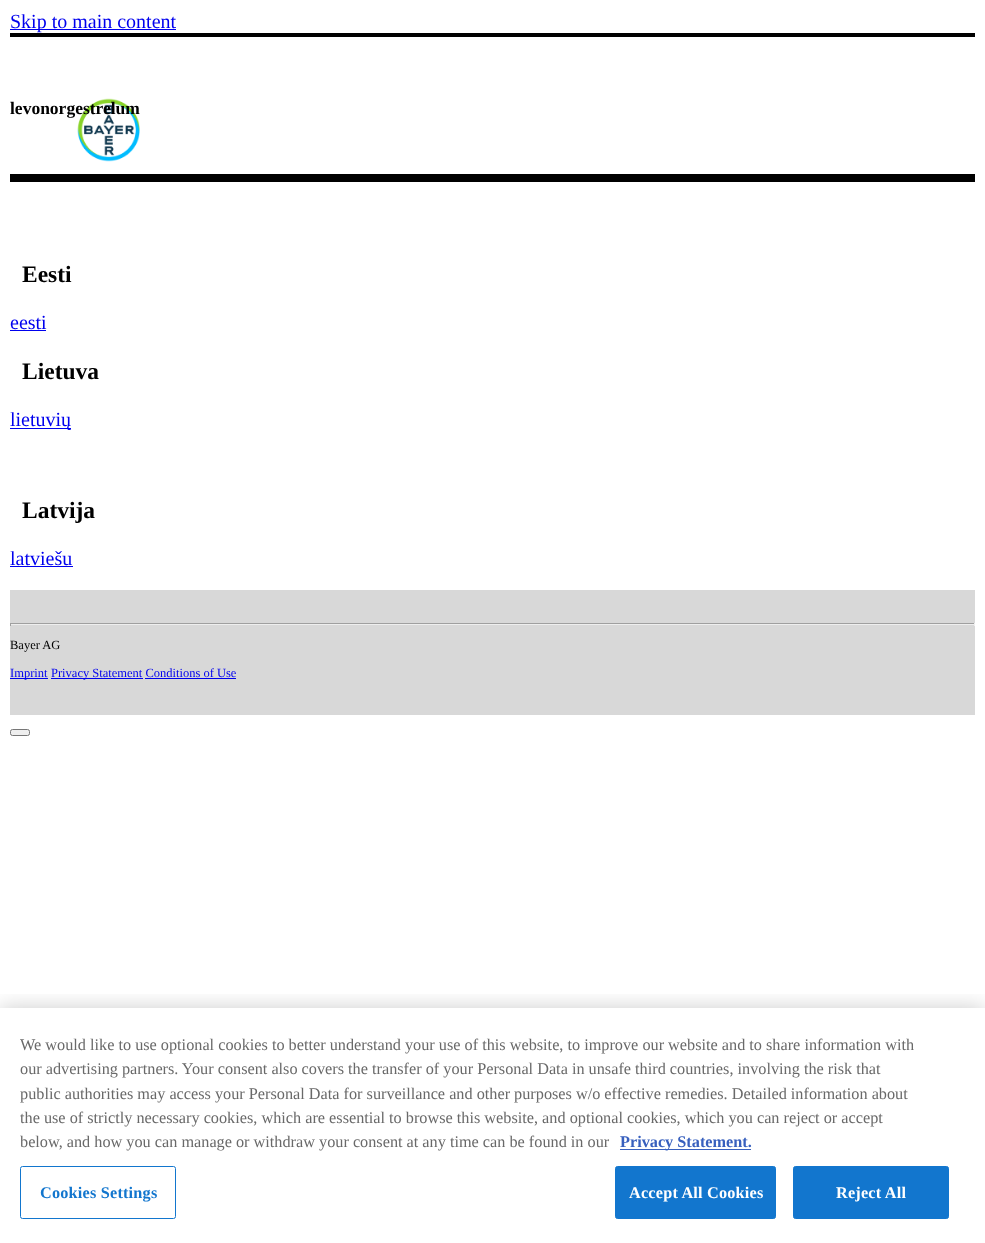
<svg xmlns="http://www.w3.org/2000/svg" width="985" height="1243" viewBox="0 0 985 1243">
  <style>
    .t1 { font: 20px Liberation Serif; fill: #00e; }
    .t2 { font: bold 17.5px Liberation Serif; fill: #000; }
    .t3 { font: bold 23.5px Liberation Serif; fill: #000; }
    .t4 { font: 12.5px Liberation Serif; fill: #000; }
    .t5 { font: 12.5px Liberation Serif; fill: #00e; }
    .t6 { font: 16.25px Liberation Serif; fill: #696969; }
    .t7 { font: bold 16.25px Liberation Serif; fill: #3860be; }
    .t8 { font: bold 16.25px Liberation Serif; letter-spacing: 0.2px; fill: #1276ce; }
    .t9 { font: bold 16.25px Liberation Serif; letter-spacing: 0.2px; fill: #fff; }
  </style>
  <defs>
    <clipPath id="clip1"><rect x="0" y="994" width="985" height="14"/></clipPath>
  </defs>
  <rect width="100%" height="100%" fill="#fff"/>
  <rect x="10" y="29" width="166" height="1" fill="#00e"/>
  <text x="10" y="28" class="t1">Skip to main content</text>
  <rect x="10" y="174" width="965" height="8" fill="#000"/>
  <rect x="10" y="33" width="965" height="4" fill="#000"/>
  <image x="77" y="98" width="63" height="64" href="images/1.png"/>
  <text x="10" y="114" class="t2">levonorgestrelum</text>
  <text x="22" y="282" class="t3">Eesti</text>
  <text x="10" y="329" class="t1">eesti</text>
  <rect x="10" y="330" width="36" height="1" fill="#00e"/>
  <text x="22" y="379" class="t3">Lietuva</text>
  <rect x="10" y="428" width="61" height="1" fill="#00e"/>
  <text x="10" y="426" class="t1">lietuvių</text>
  <text x="22" y="518" class="t3">Latvija</text>
  <text x="10" y="565" class="t1">latviešu</text>
  <rect x="10" y="566" width="63" height="1" fill="#00e"/>
  <rect x="10" y="590" width="965" height="125" fill="#d8d8d8"/>
  <rect x="10" y="623" width="965" height="1" fill="#9f9f9f"/>
  <rect x="974" y="623" width="1" height="3" fill="#eee"/>
  <rect x="10" y="624" width="965" height="1" fill="#eee"/>
  <rect x="10" y="623" width="1" height="3" fill="#9f9f9f"/>
  <text x="10" y="649" class="t4">Bayer AG</text>
  <rect x="10" y="678" width="38" height="1" fill="#00e"/>
  <text x="10" y="677" class="t5">Imprint</text>
  <rect x="51" y="678" width="92" height="1" fill="#00e"/>
  <text x="51" y="677" class="t5">Privacy Statement Conditions of Use</text>
  <rect x="145" y="678" width="91" height="1" fill="#00e"/>
  <rect x="10.5" y="729.5" width="19" height="6" rx="2" fill="#efefef" stroke="#767676"/>
  <g clip-path="url(#clip1)">
    <rect x="0" y="1008" width="985" height="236" fill="#00000033" filter="blur(11px)"/>
  </g>
  <text x="20" y="1050" class="t6">We would like to use optional cookies to better understand your use of this website, to improve our website and to share information with</text>
  <text x="20" y="1074" class="t6">our advertising partners. Your consent also covers the transfer of your Personal Data in unsafe third countries, involving the risk that</text>
  <text x="20" y="1099" class="t6">public authorities may access your Personal Data for surveillance and other purposes w/o effective remedies. Detailed information about</text>
  <text x="20" y="1123" class="t6">the use of strictly necessary cookies, which are essential to browse this website, and optional cookies, which you can reject or accept</text>
  <text x="20" y="1147" class="t6">below, and how you can manage or withdraw your consent at any time can be found in our</text>
  <rect x="620" y="1149" width="131" height="1" fill="#3860be"/>
  <text x="620" y="1147" class="t7">Privacy Statement.</text>
  <rect x="20.5" y="1166.5" width="155" height="52" rx="2" fill="none" stroke="#1276ce"/>
  <text x="40" y="1198" class="t8">Cookies Settings</text>
  <rect x="615.5" y="1166.5" width="160" height="52" rx="2" fill="#1276ce" stroke="#1276ce"/>
  <text x="629" y="1198" class="t9">Accept All Cookies</text>
  <rect x="793.5" y="1166.5" width="155" height="52" rx="2" fill="#1276ce" stroke="#1276ce"/>
  <text x="836" y="1198" class="t9">Reject All</text>
</svg>
